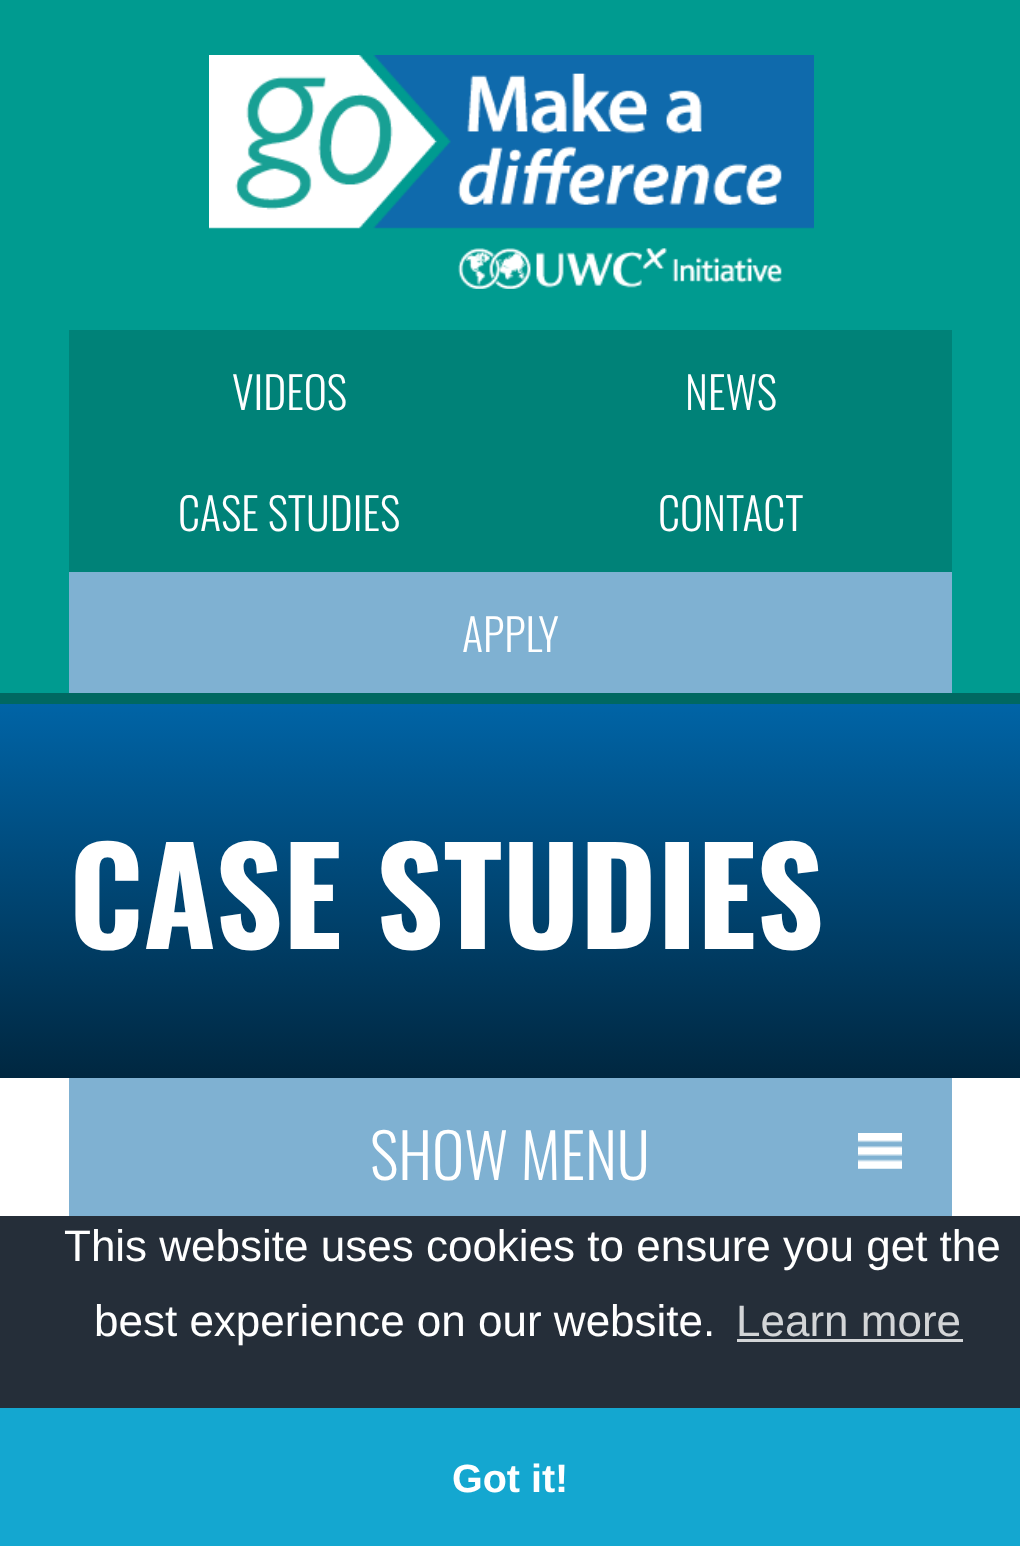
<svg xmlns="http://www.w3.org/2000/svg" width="1020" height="1546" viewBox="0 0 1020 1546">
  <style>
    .t1 { font: 300 44px Oswald; fill: #fff; }
    .t2 { font: bold 132px Oswald; fill: #fff; }
    .t3 { font: 300 61.5px Oswald; fill: #fff; }
    .t4 { font: 44px Liberation Sans; fill: #fff; }
    .t5 { font: 44px Liberation Sans; fill: #d3d5d7; }
    .t6 { font: bold 39.5px Liberation Sans; fill: #fff; }
  </style>
  <defs>
    <linearGradient id="g1" gradientUnits="userSpaceOnUse" x1="510" y1="704" x2="510" y2="1078"><stop offset="0" stop-color="#0064a6"/><stop offset="1" stop-color="#002740"/></linearGradient>
  </defs>
  <rect width="100%" height="100%" fill="#fff"/>
  <rect x="0" y="0" width="1020" height="693" fill="#009b90"/>
  <rect x="0" y="693" width="1020" height="11" fill="#006861"/>
  <image x="209" y="55" width="605" height="234" href="images/1.png"/>
  <rect x="69" y="330" width="883" height="121" fill="#008278"/>
  <text x="232" y="410" class="t1">VIDEOS</text>
  <text x="685" y="410" class="t1">NEWS</text>
  <rect x="69" y="451" width="883" height="121" fill="#008278"/>
  <text x="178" y="531" class="t1">CASE STUDIES</text>
  <text x="658" y="531" class="t1">CONTACT</text>
  <rect x="69" y="572" width="883" height="121" fill="#7fb1d2"/>
  <text x="462" y="652" class="t1">APPLY</text>
  <rect x="0" y="704" width="1020" height="374" fill="url(#g1)"/>
  <text x="69" y="949" class="t2">CASE STUDIES</text>
  <rect x="69" y="1078" width="883" height="138" fill="#7fb1d2"/>
  <image x="858" y="1133" width="44" height="36" href="images/2.png"/>
  <text x="370" y="1180" class="t3">SHOW MENU</text>
  <rect x="0" y="1216" width="1020" height="192" fill="#252e39"/>
  <text x="64" y="1261" class="t4">This website uses cookies to ensure you get the</text>
  <text x="94" y="1336" class="t4">best experience on our website.</text>
  <text x="736" y="1336" class="t5">Learn more</text>
  <rect x="737" y="1339" width="226" height="3" fill="#d3d5d7"/>
  <rect x="0" y="1408" width="1020" height="138" fill="#14a7d0"/>
  <text x="452" y="1492" class="t6">Got it!</text>
</svg>
